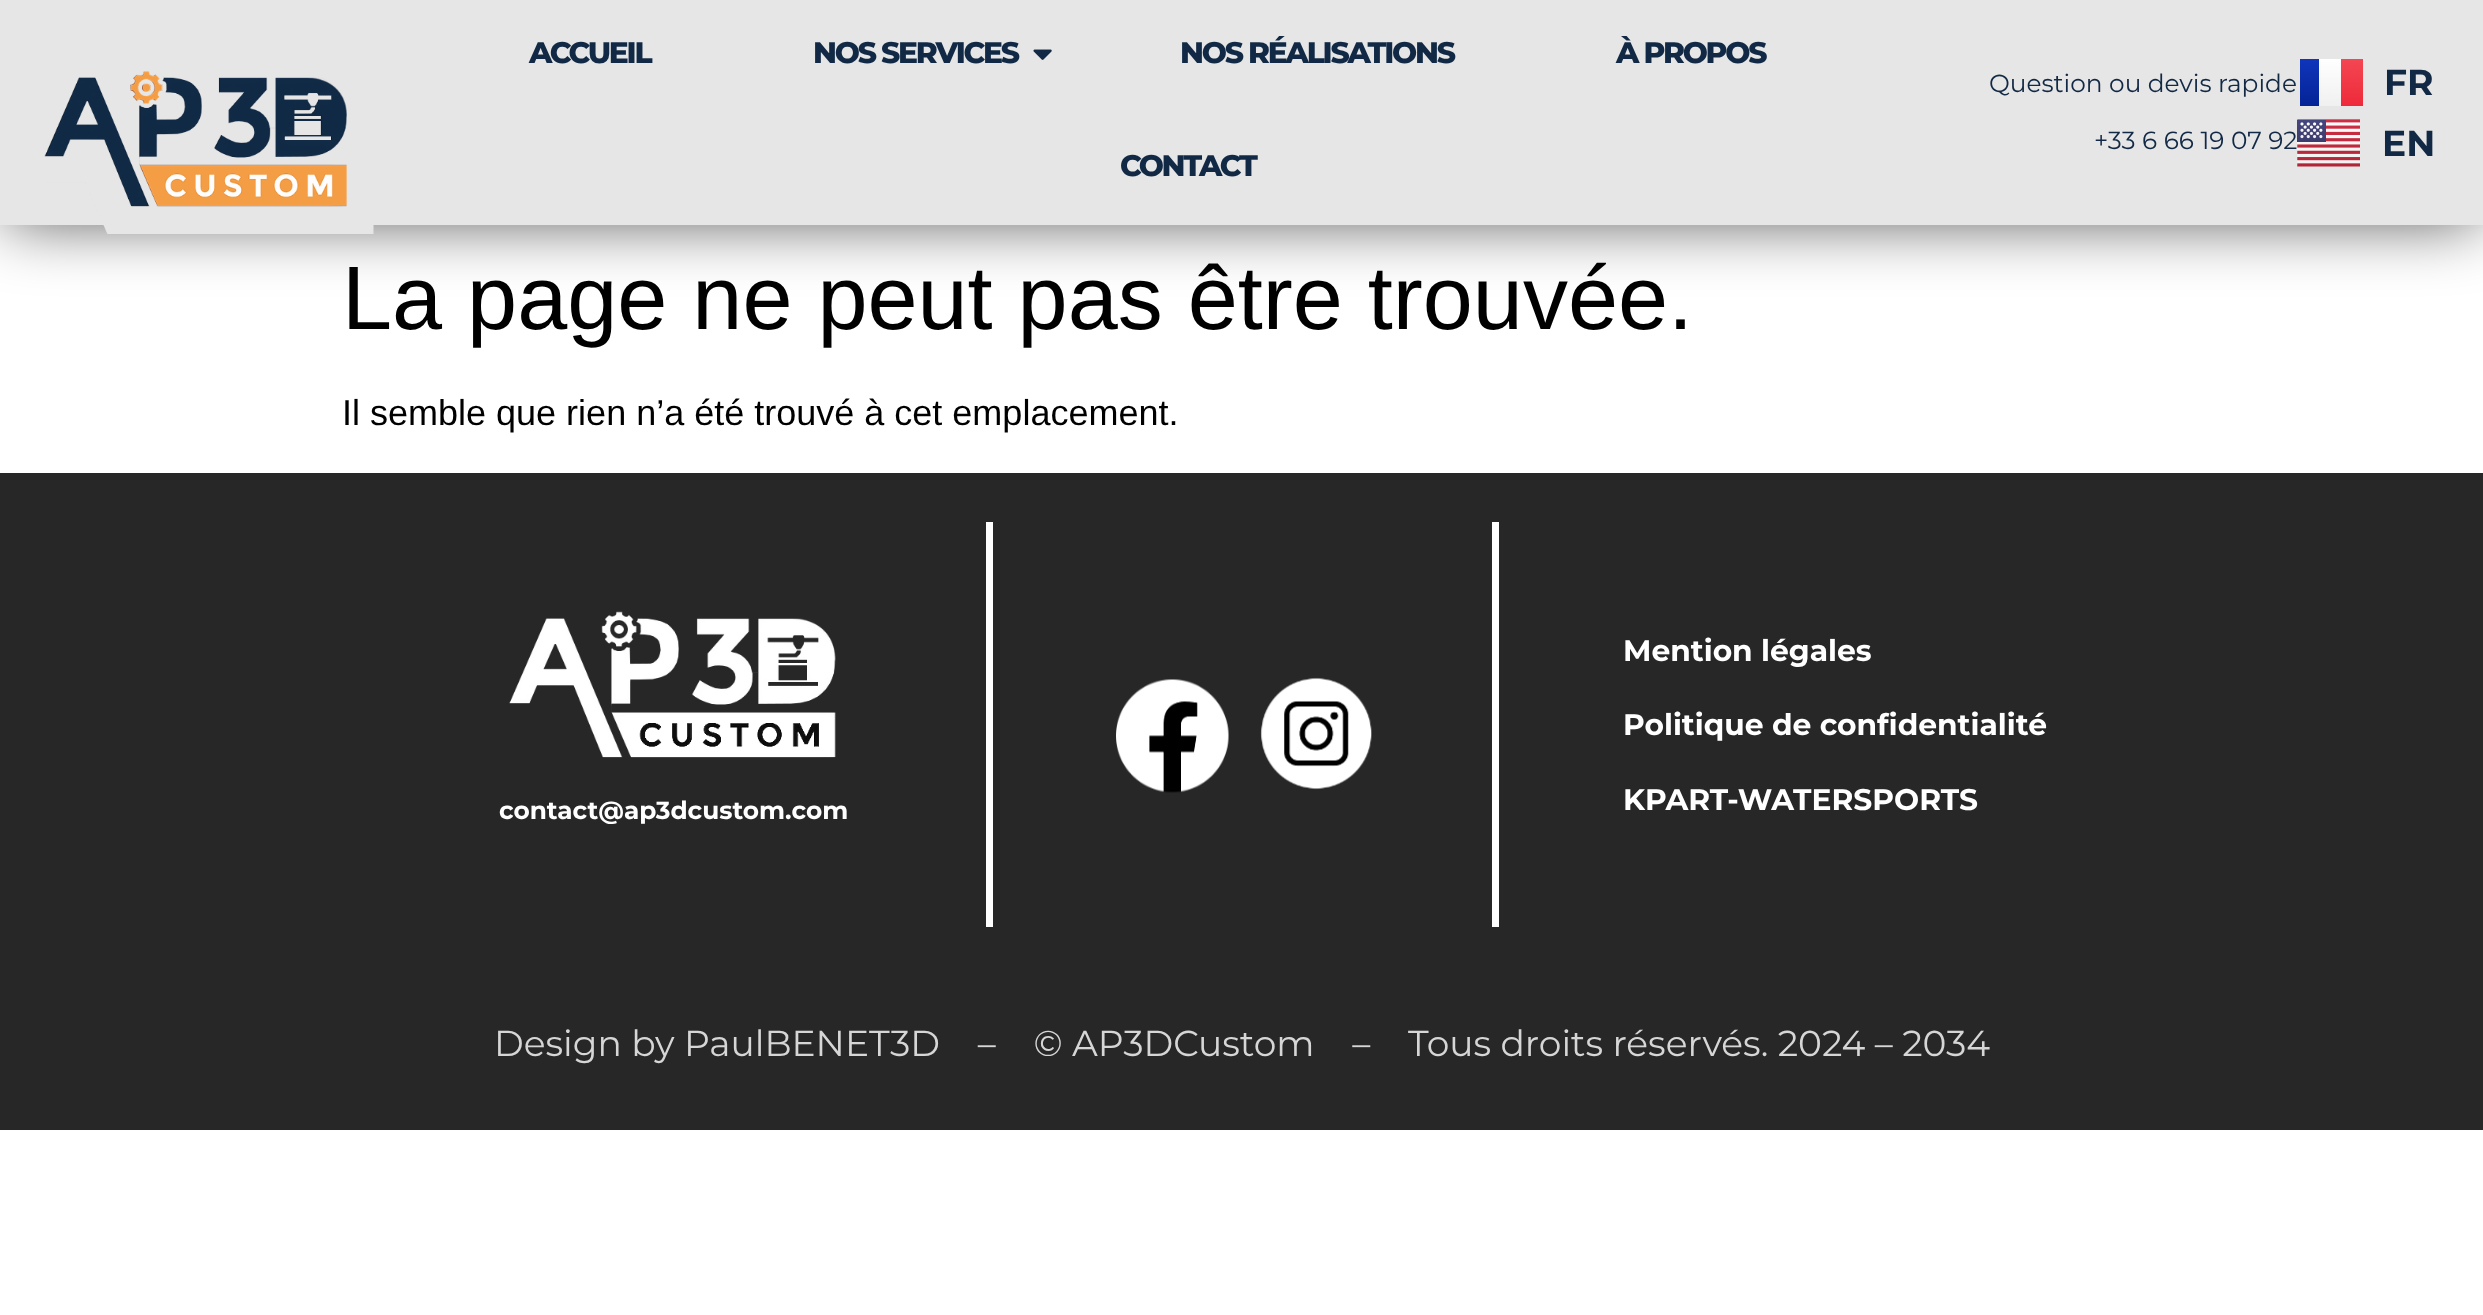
<svg xmlns="http://www.w3.org/2000/svg" width="2483" height="1315" viewBox="0 0 2483 1315">
  <style>
    .t1 { font: 800 29.75px Montserrat; letter-spacing: -2.25px; fill: #112945; }
    .t2 { font: 24.8px Montserrat; fill: #112945; }
    .t3 { font: bold 36px Montserrat; fill: #112945; }
    .t4 { font: 90px Liberation Sans; fill: #000; }
    .t5 { font: 36px Liberation Sans; fill: #000; }
    .t6 { font: bold 29.75px Montserrat; fill: #fff; }
    .t7 { font: bold 24.8px Montserrat; fill: #fff; }
    .t8 { font: 36px Montserrat; fill: #d6d6d6; }
  </style>
  <defs>
    <linearGradient id="g1" gradientUnits="userSpaceOnUse" x1="2346" y1="59" x2="2346" y2="106"><stop offset="0" stop-color="#f44653"/><stop offset="1" stop-color="#ee2a39"/></linearGradient>
    <linearGradient id="g2" gradientUnits="userSpaceOnUse" x1="2308" y1="59" x2="2308" y2="106"><stop offset="0" stop-color="#1035bb"/><stop offset="1" stop-color="#042396"/></linearGradient>
    <linearGradient id="g3" gradientUnits="userSpaceOnUse" x1="2330" y1="59" x2="2330" y2="106"><stop offset="0" stop-color="#fff"/><stop offset="1" stop-color="#f0f0f0"/></linearGradient>
  </defs>
  <rect width="100%" height="100%" fill="#fff"/>
  <rect x="5" y="5" width="2475" height="216" fill="#000000ad" filter="blur(32.5px)"/>
  <rect x="0" y="0" width="2483" height="225" fill="#e6e6e6"/>
  <image x="44" y="71" width="330" height="163" href="images/1.png"/>
  <text x="529" y="63" class="t1">ACCUEIL</text>
  <text x="813" y="63" class="t1">NOS SERVICES</text>
  <image x="1033" y="49" width="19" height="11" href="images/2.png"/>
  <text x="1180" y="63" class="t1">NOS RÉALISATIONS</text>
  <text x="1616" y="63" class="t1">À PROPOS</text>
  <text x="1120" y="176" class="t1">CONTACT</text>
  <text x="1989" y="92" class="t2">Question ou devis rapide</text>
  <text x="2094" y="149" class="t2">+33 6 66 19 07 92</text>
  <rect x="2341" y="59" width="22" height="47" fill="url(#g1)"/>
  <rect x="2300" y="59" width="19" height="47" fill="url(#g2)"/>
  <rect x="2319" y="59" width="22" height="47" fill="url(#g3)"/>
  <text x="2384" y="95" class="t3">FR</text>
  <image x="2297" y="119" width="63" height="48" href="images/3.png"/>
  <text x="2382" y="156" class="t3">EN</text>
  <text x="342" y="329" class="t4">La page ne peut pas être trouvée.</text>
  <text x="342" y="425" class="t5">Il semble que rien n’a été trouvé à cet emplacement.</text>
  <rect x="0" y="473" width="2483" height="657" fill="#272727"/>
  <rect x="986" y="522" width="7" height="405" fill="#fff"/>
  <image x="1116" y="679" width="113" height="114" href="images/4.png"/>
  <image x="1260" y="677" width="112" height="113" href="images/5.png"/>
  <rect x="1492" y="522" width="7" height="405" fill="#fff"/>
  <text x="1623" y="661" class="t6">Mention légales</text>
  <text x="1623" y="735" class="t6">Politique de confidentialité</text>
  <text x="1623" y="810" class="t6">KPART-WATERSPORTS</text>
  <image x="509" y="611" width="327" height="147" href="images/6.png"/>
  <text x="499" y="819" class="t7">contact@ap3dcustom.com</text>
  <text x="494" y="1056" class="t8" xml:space="preserve">Design by PaulBENET3D    –    © AP3DCustom    –    Tous droits réservés. 2024 – 2034</text>
</svg>
